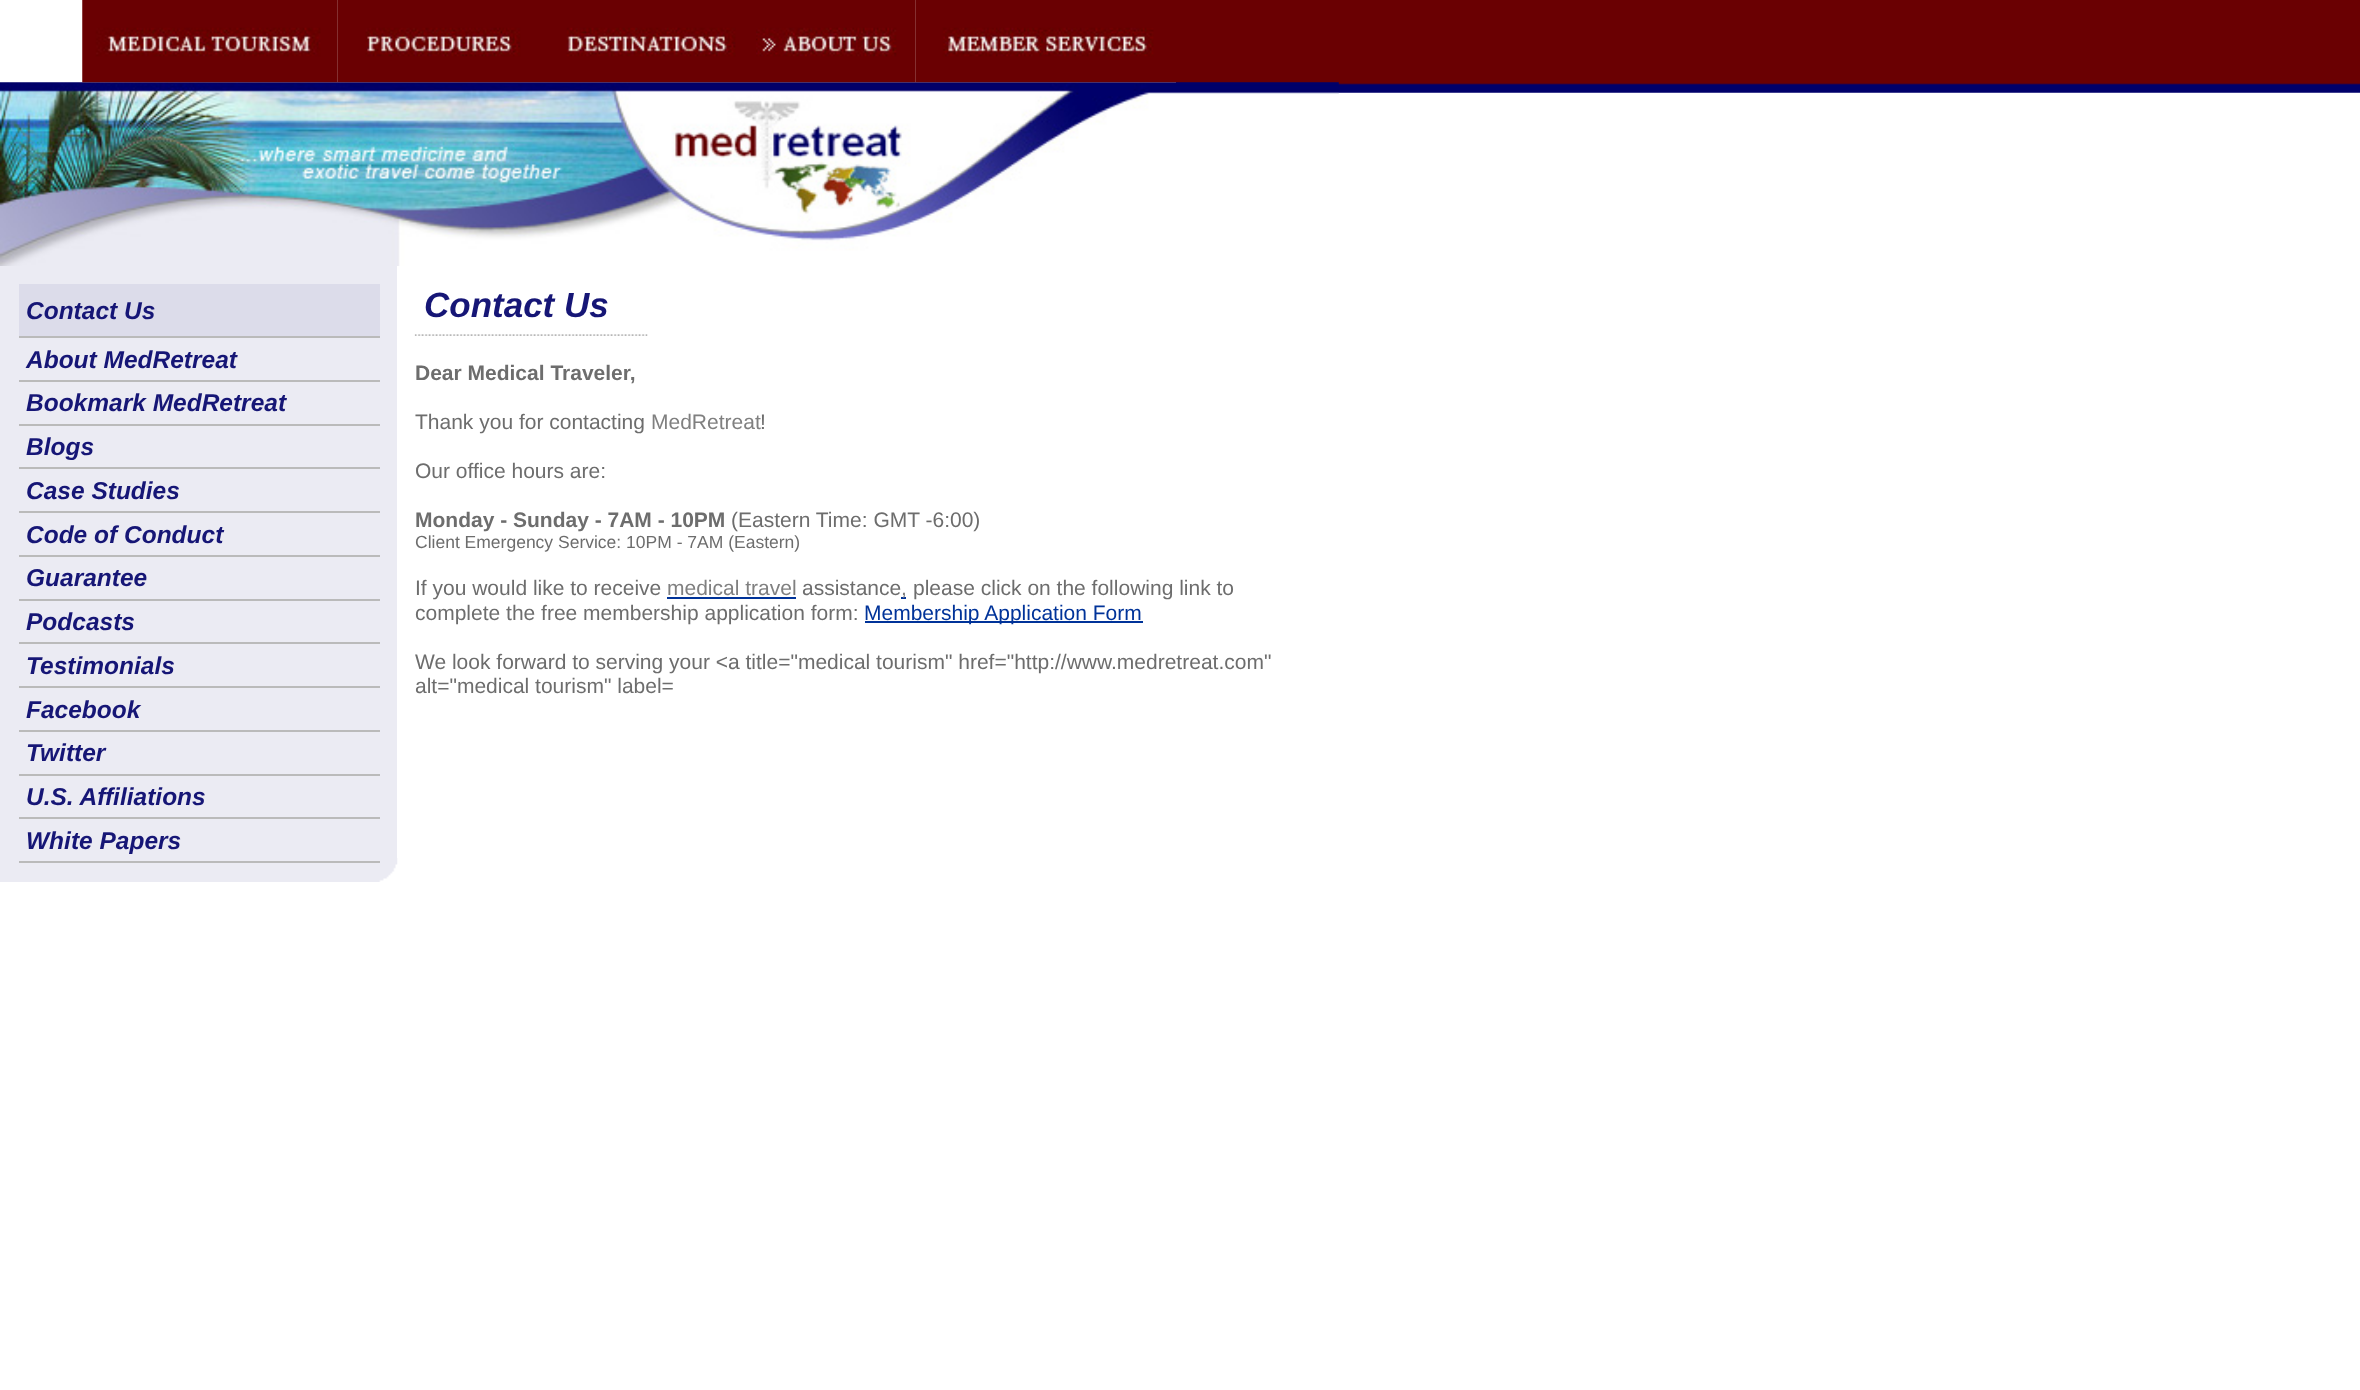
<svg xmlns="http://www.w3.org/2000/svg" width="2360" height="1390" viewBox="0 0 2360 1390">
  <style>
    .t1 { font: italic bold 24.5px Liberation Sans; fill: #161676; }
    .t2 { font: italic bold 35px Liberation Sans; fill: #161676; }
    .t3 { font: bold 21px Liberation Sans; fill: #6d6d6d; }
    .t4 { font: 21px Liberation Sans; fill: #6d6d6d; }
    .t5 { font: 21px Liberation Sans; fill: #808080; }
    .t6 { font: 17.5px Liberation Sans; fill: #6d6d6d; }
    .t7 { font: 21px Liberation Sans; fill: #039; }
  </style>
  <rect width="100%" height="100%" fill="#fff"/>
  <image x="1176" y="0" width="1184" height="93" href="images/6.png"/>
  <image x="0" y="82" width="1339" height="184" href="images/7.png"/>
  <image x="82" y="0" width="256" height="83" href="images/1.png"/>
  <image x="337" y="0" width="202" height="83" href="images/2.png"/>
  <image x="539" y="0" width="217" height="83" href="images/3.png"/>
  <image x="756" y="0" width="160" height="83" href="images/4.png"/>
  <image x="915" y="0" width="261" height="83" href="images/5.png"/>
  <rect x="0" y="266" width="397" height="616" fill="#ebebf3"/>
  <image x="379" y="858" width="19" height="24" href="images/8.png"/>
  <rect x="19" y="284" width="361" height="52" fill="#dcdcea"/>
  <rect x="19" y="336" width="361" height="2" fill="#bababa"/>
  <text x="26" y="319" class="t1">Contact Us</text>
  <rect x="19" y="380" width="361" height="2" fill="#bababa"/>
  <text x="26" y="368" class="t1">About MedRetreat</text>
  <rect x="19" y="424" width="361" height="2" fill="#bababa"/>
  <text x="26" y="411" class="t1">Bookmark MedRetreat</text>
  <rect x="19" y="467" width="361" height="2" fill="#bababa"/>
  <text x="26" y="455" class="t1">Blogs</text>
  <rect x="19" y="511" width="361" height="2" fill="#bababa"/>
  <text x="26" y="499" class="t1">Case Studies</text>
  <rect x="19" y="555" width="361" height="2" fill="#bababa"/>
  <text x="26" y="543" class="t1">Code of Conduct</text>
  <rect x="19" y="599" width="361" height="2" fill="#bababa"/>
  <text x="26" y="586" class="t1">Guarantee</text>
  <rect x="19" y="642" width="361" height="2" fill="#bababa"/>
  <text x="26" y="630" class="t1">Podcasts</text>
  <rect x="19" y="686" width="361" height="2" fill="#bababa"/>
  <text x="26" y="674" class="t1">Testimonials</text>
  <rect x="19" y="730" width="361" height="2" fill="#bababa"/>
  <text x="26" y="718" class="t1">Facebook</text>
  <rect x="19" y="774" width="361" height="2" fill="#bababa"/>
  <text x="26" y="761" class="t1">Twitter</text>
  <rect x="19" y="817" width="361" height="2" fill="#bababa"/>
  <text x="26" y="805" class="t1">U.S. Affiliations</text>
  <rect x="19" y="861" width="361" height="2" fill="#bababa"/>
  <text x="26" y="849" class="t1">White Papers</text>
  <text x="424" y="317" class="t2">Contact Us</text>
  <image x="414" y="334" width="234" height="2" href="images/9.png"/>
  <text x="415" y="380" class="t3">Dear Medical Traveler,</text>
  <text x="415" y="429" class="t4">Thank you for contacting</text>
  <text x="651" y="429" class="t5">MedRetreat</text>
  <text x="760" y="429" class="t4">!</text>
  <text x="415" y="478" class="t4">Our office hours are:</text>
  <text x="415" y="527" class="t3">Monday - Sunday - 7AM - 10PM</text>
  <text x="731" y="527" class="t4">(Eastern Time: GMT -6:00)</text>
  <text x="415" y="548" class="t6">Client Emergency Service: 10PM - 7AM (Eastern)</text>
  <text x="415" y="595" class="t4">If you would like to receive</text>
  <text x="667" y="595" class="t5">medical travel</text>
  <rect x="667" y="597" width="129" height="2" fill="#039"/>
  <text x="802" y="595" class="t4">assistance</text>
  <rect x="901" y="597" width="5" height="2" fill="#039"/>
  <text x="901" y="595" class="t5">,</text>
  <text x="913" y="595" class="t4">please click on the following link to</text>
  <text x="415" y="620" class="t4">complete the free membership application form:</text>
  <rect x="865" y="621" width="278" height="2" fill="#039"/>
  <text x="864" y="620" class="t7">Membership Application Form</text>
  <text x="415" y="669" class="t4">We look forward to serving your &lt;a title="medical tourism" href="http://www.medretreat.com"</text>
  <text x="415" y="693" class="t4">alt="medical tourism" label=</text>
</svg>
